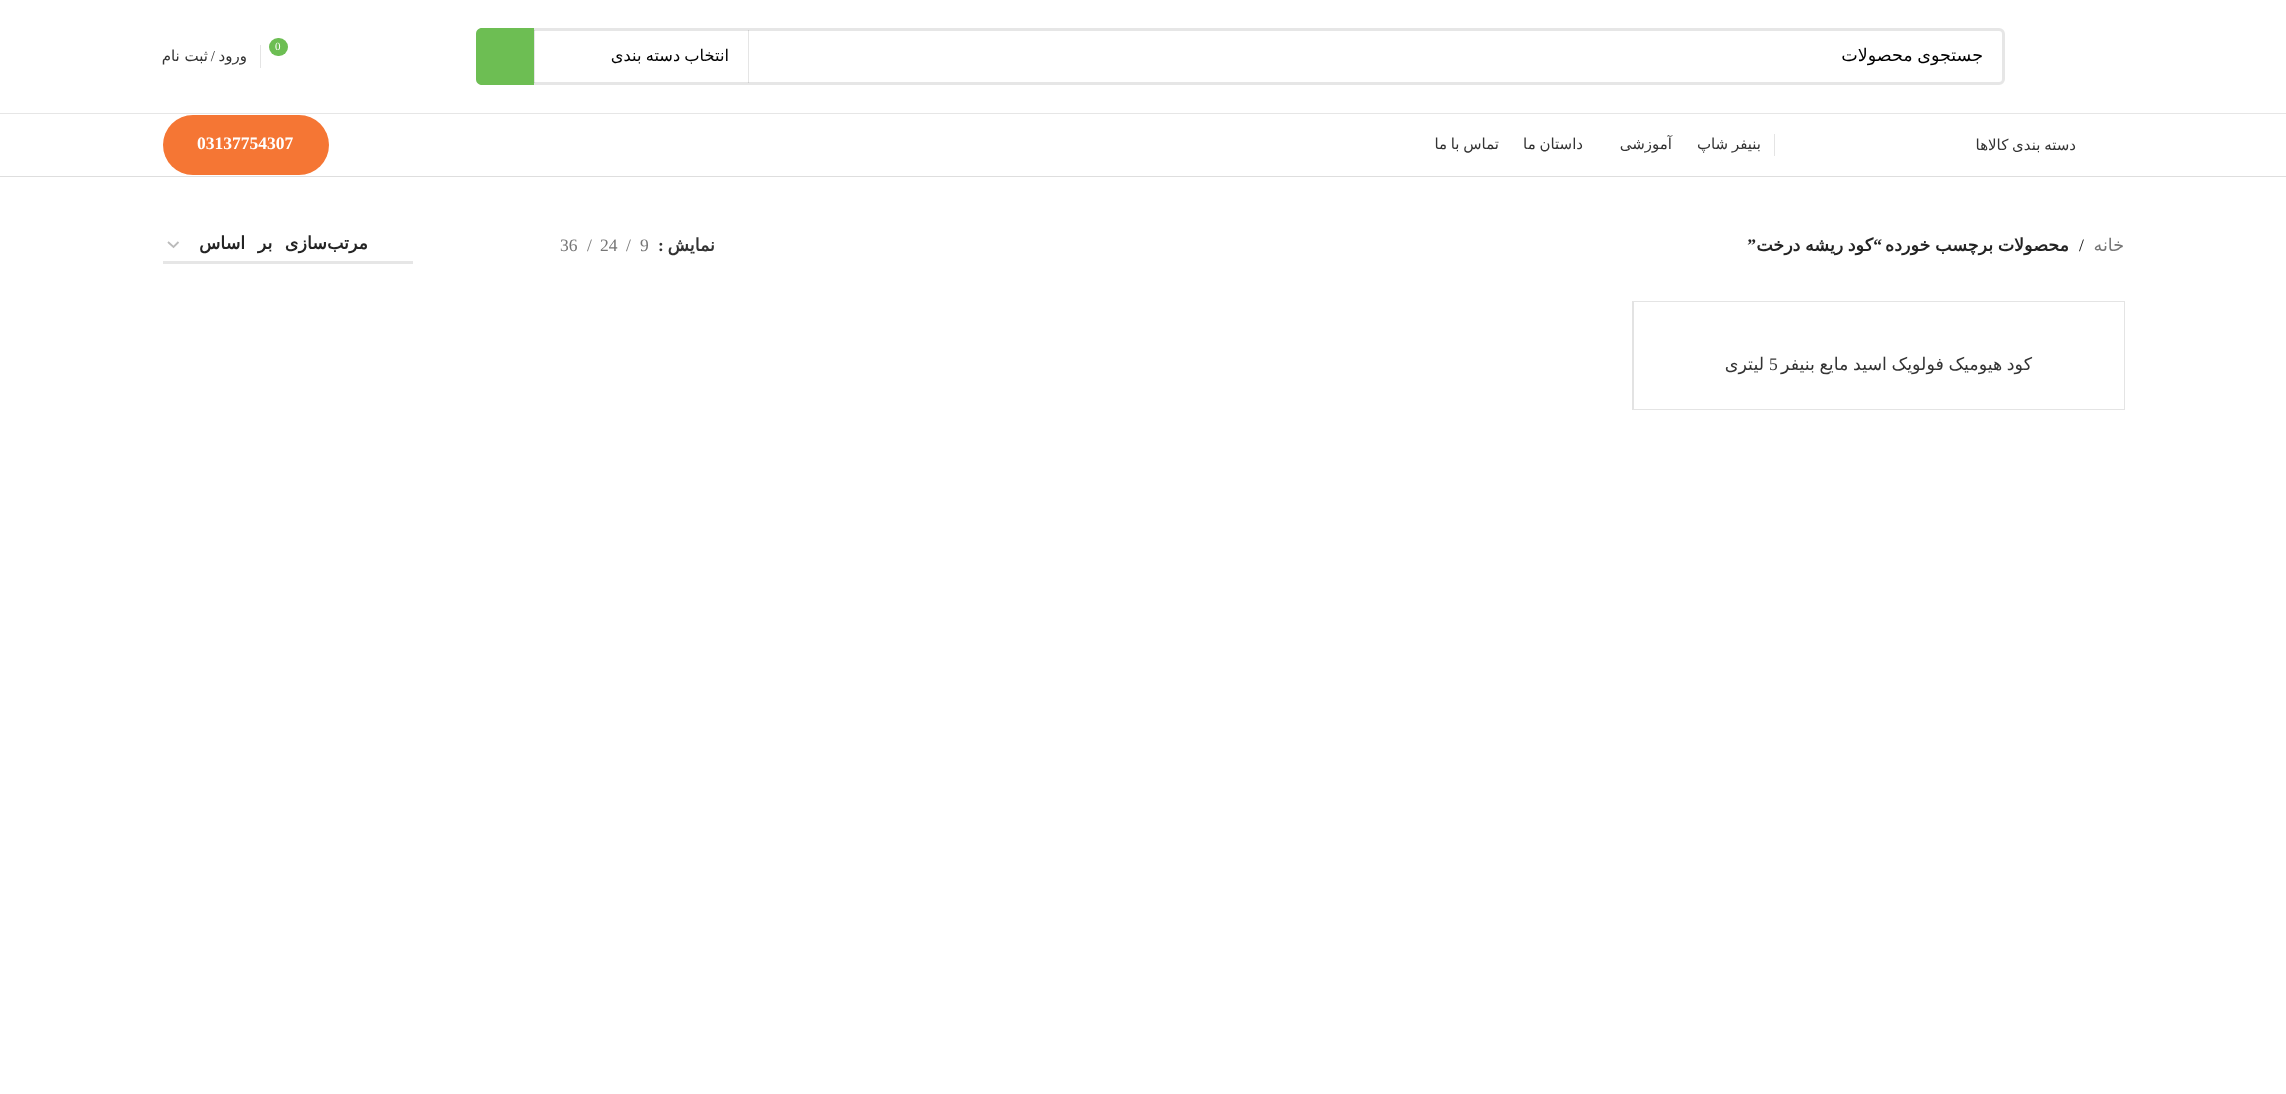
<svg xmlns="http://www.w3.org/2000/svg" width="2286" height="1094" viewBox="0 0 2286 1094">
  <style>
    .t1 { font: 17.5px DejaVu Sans; direction: rtl; fill: #000; }
    .t2 { font: 16.25px DejaVu Sans; direction: rtl; fill: #000; }
    .t3 { font: 11px Liberation Serif; fill: #fff; }
    .t4 { font: 15px DejaVu Sans; direction: rtl; fill: #333; }
    .t5 { font: 15px Liberation Serif; direction: rtl; fill: #333; }
    .t6 { font: bold 17.5px Liberation Serif; fill: #fff; }
    .t7 { font: 17.5px DejaVu Sans; direction: rtl; fill: #767676; }
    .t8 { font: 17.5px Liberation Serif; fill: #000; }
    .t9 { font: bold 17.5px DejaVu Sans; direction: rtl; fill: #242424; }
    .t10 { font: bold 17.5px Liberation Serif; direction: rtl; fill: #242424; }
    .t11 { font: bold 17.5px DejaVu Sans; direction: rtl; fill: #333; }
    .t12 { font: bold 17.5px Liberation Serif; fill: #333; }
    .t13 { font: 17.5px Liberation Serif; fill: #767676; }
    .t14 { font: 17.5px DejaVu Sans; direction: rtl; fill: #333; }
    .t15 { font: 17.5px Liberation Serif; fill: #333; }
  </style>
  <rect width="100%" height="100%" fill="#fff"/>
  <rect x="0" y="113" width="2286" height="1" fill="#e6e6e6"/>
  <rect x="477.5" y="29.5" width="1526" height="54" rx="4.5" fill="none" stroke="#e6e6e6" stroke-width="3"/>
  <text x="1983" y="61" word-spacing="-1" class="t1">جستجوی محصولات</text>
  <rect x="748" y="30" width="1" height="53" fill="#0000001a"/>
  <rect x="534" y="30" width="1" height="53" fill="#0000001a"/>
  <text x="729" y="61" word-spacing="-1" class="t2">انتخاب دسته بندی</text>
  <path d="M482 28H534V85H482C478.5 85 476 82.5 476 79V34C476 30.5 478.5 28 482 28Z" fill="#6dbe53"/>
  <rect x="269" y="38" width="19" height="18" rx="9" fill="#6dbe53"/>
  <text x="275" y="50" class="t3">0</text>
  <rect x="260" y="45" width="1" height="23" fill="#e4e4e4"/>
  <text x="247" y="61" class="t4">ورود</text>
  <text x="215" y="61" class="t5">/</text>
  <text x="208" y="61" class="t4">ثبت نام</text>
  <rect x="0" y="176" width="2286" height="1" fill="#dedede"/>
  <text x="2076" y="150" word-spacing="-1" class="t4">دسته بندی کالاها</text>
  <rect x="1774" y="134" width="1" height="22" fill="#e4e4e4"/>
  <text x="1761" y="149" word-spacing="-1" class="t4">بنیفر شاپ</text>
  <text x="1672" y="149" class="t4">آموزشی</text>
  <text x="1583" y="149" word-spacing="-1" class="t4">داستان ما</text>
  <text x="1499" y="149" word-spacing="-1" class="t4">تماس با ما</text>
  <rect x="163" y="115" width="166" height="60" rx="30" fill="#f57634"/>
  <text x="197" y="149" class="t6">03137754307</text>
  <text x="2124" y="251" class="t7">خانه</text>
  <text x="2079" y="251" class="t8">/</text>
  <text x="2069" y="251" word-spacing="-1" class="t9">محصولات برچسب خورده</text>
  <text x="1882" y="251" class="t10">“</text>
  <text x="1873" y="251" word-spacing="-1" class="t9">کود ریشه درخت</text>
  <text x="1756" y="251" class="t10">”</text>
  <text x="715" y="251" class="t11">نمایش</text>
  <text x="658" y="251" class="t12">:</text>
  <text x="640" y="251" class="t13">9</text>
  <text x="626" y="251" class="t13">/</text>
  <text x="600" y="251" class="t13">24</text>
  <text x="587" y="251" class="t13">/</text>
  <text x="560" y="251" class="t13">36</text>
  <path d="M168 242L173.5 247L178.5 242" fill="none" stroke="#bbb" stroke-width="1.8"/>
  <rect x="163" y="261" width="250" height="3" fill="#e6e6e6"/>
  <text x="368" y="249" class="t9">مرتب</text>
  <text x="327" y="249" word-spacing="7" class="t9">سازی بر اساس</text>
  <rect x="2124" y="301" width="1" height="109" fill="#e4e4e4"/>
  <path d="M1632 301H2124V302H1634Z" fill="#e4e4e4"/>
  <path d="M2124 410H1632L1634 409H2124Z" fill="#e4e4e4"/>
  <path d="M1632 410V301L1634 302V409Z" fill="#0000001c"/>
  <text x="2032" y="370" word-spacing="-1" class="t14">کود هیومیک فولویک اسید مایع بنیفر</text>
  <text x="1769" y="370" class="t15">5</text>
  <text x="1764" y="370" class="t14">لیتری</text>
</svg>
